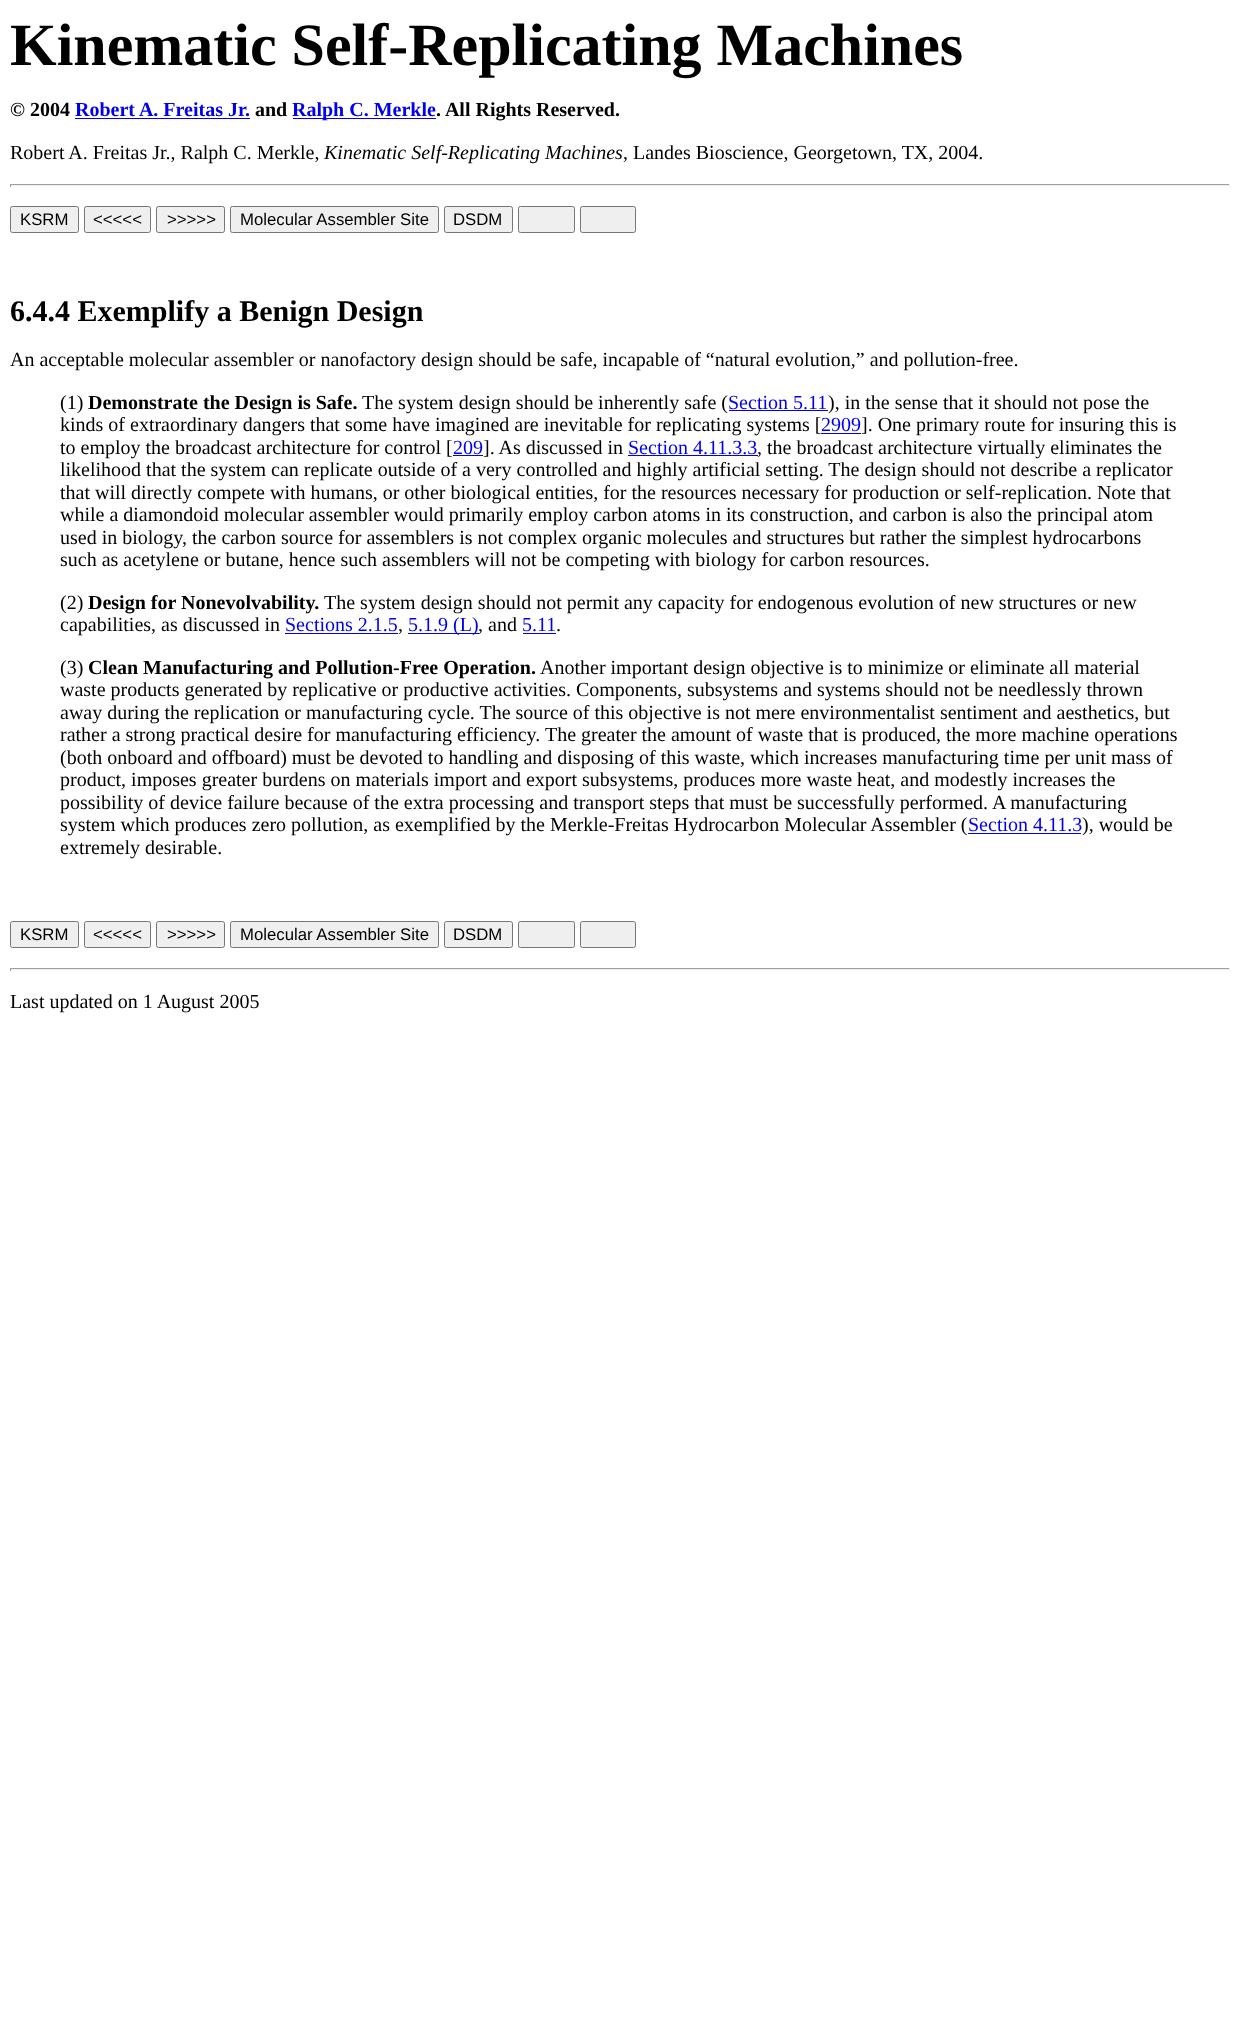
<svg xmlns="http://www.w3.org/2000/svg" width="1239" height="2028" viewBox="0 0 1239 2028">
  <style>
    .t1 { font: bold 60px Liberation Serif; fill: #000; }
    .t2 { font: bold 20px Liberation Serif; fill: #000; }
    .t3 { font: bold 20px Liberation Serif; fill: #00e; }
    .t4 { font: 20px Liberation Serif; fill: #000; }
    .t5 { font: italic 20px Liberation Serif; fill: #000; }
    .t6 { font: 16.75px Liberation Sans; fill: #000; }
    .t7 { font: bold 30px Liberation Serif; fill: #000; }
    .t8 { font: 20px Liberation Serif; fill: #00e; }
  </style>
  <rect width="100%" height="100%" fill="#fff"/>
  <text x="10" y="65" class="t1">Kinematic Self-Replicating Machines</text>
  <text x="10" y="116" class="t2">© 2004</text>
  <text x="75" y="116" class="t3">Robert A. Freitas Jr.</text>
  <rect x="75" y="118" width="175" height="1" fill="#00e"/>
  <text x="255" y="116" class="t2">and</text>
  <rect x="293" y="118" width="143" height="1" fill="#00e"/>
  <text x="292" y="116" class="t3">Ralph C. Merkle</text>
  <text x="436" y="116" class="t2">. All Rights Reserved.</text>
  <text x="10" y="159" class="t4">Robert A. Freitas Jr., Ralph C. Merkle,</text>
  <text x="324" y="159" class="t5">Kinematic Self-Replicating Machines</text>
  <text x="623" y="159" class="t4">, Landes Bioscience, Georgetown, TX, 2004.</text>
  <rect x="10" y="184" width="1220" height="1" fill="#9f9f9f"/>
  <rect x="1229" y="184" width="1" height="3" fill="#eee"/>
  <rect x="10" y="185" width="1220" height="1" fill="#eee"/>
  <rect x="10" y="184" width="1" height="3" fill="#9f9f9f"/>
  <rect x="10.5" y="206.5" width="68" height="26" rx="2" fill="#efefef" stroke="#767676"/>
  <text x="20" y="225" class="t6">KSRM</text>
  <rect x="84.5" y="206.5" width="66" height="26" rx="2" fill="#efefef" stroke="#767676"/>
  <text x="93" y="225" class="t6">&lt;&lt;&lt;&lt;&lt;</text>
  <rect x="156.5" y="206.5" width="68" height="26" rx="2" fill="#efefef" stroke="#767676"/>
  <text x="167" y="225" class="t6">&gt;&gt;&gt;&gt;&gt;</text>
  <rect x="230.5" y="206.5" width="208" height="26" rx="2" fill="#efefef" stroke="#767676"/>
  <text x="240" y="225" class="t6">Molecular Assembler Site</text>
  <rect x="444.5" y="206.5" width="68" height="26" rx="2" fill="#efefef" stroke="#767676"/>
  <text x="453" y="225" class="t6">DSDM</text>
  <rect x="518.5" y="206.5" width="56" height="26" rx="2" fill="#efefef" stroke="#767676"/>
  <rect x="580.5" y="206.5" width="55" height="26" rx="2" fill="#efefef" stroke="#767676"/>
  <text x="10" y="321" class="t7">6.4.4 Exemplify a Benign Design</text>
  <text x="10" y="366" class="t4">An acceptable molecular assembler or nanofactory design should be safe, incapable of “natural evolution,” and pollution-free.</text>
  <text x="60" y="409" class="t4">(1)</text>
  <text x="88" y="409" class="t2">Demonstrate the Design is Safe.</text>
  <text x="362" y="409" class="t4">The system design should be inherently safe (</text>
  <text x="728" y="409" class="t8">Section 5.11</text>
  <rect x="729" y="410" width="99" height="1" fill="#00e"/>
  <text x="828" y="409" class="t4">), in the sense that it should not pose the</text>
  <text x="60" y="431" class="t4">kinds of extraordinary dangers that some have imagined are inevitable for replicating systems [</text>
  <text x="821" y="431" class="t8">2909</text>
  <rect x="821" y="433" width="40" height="1" fill="#00e"/>
  <text x="861" y="431" class="t4">]. One primary route for insuring this is</text>
  <text x="60" y="454" class="t4">to employ the broadcast architecture for control [</text>
  <text x="453" y="454" class="t8">209</text>
  <rect x="453" y="455" width="30" height="1" fill="#00e"/>
  <text x="483" y="454" class="t4">]. As discussed in</text>
  <text x="628" y="454" class="t8">Section 4.11.3.3</text>
  <rect x="628" y="455" width="130" height="1" fill="#00e"/>
  <text x="757" y="454" class="t4">, the broadcast architecture virtually eliminates the</text>
  <text x="60" y="476" class="t4">likelihood that the system can replicate outside of a very controlled and highly artificial setting. The design should not describe a replicator</text>
  <text x="60" y="499" class="t4">that will directly compete with humans, or other biological entities, for the resources necessary for production or self-replication. Note that</text>
  <text x="60" y="521" class="t4">while a diamondoid molecular assembler would primarily employ carbon atoms in its construction, and carbon is also the principal atom</text>
  <text x="60" y="544" class="t4">used in biology, the carbon source for assemblers is not complex organic molecules and structures but rather the simplest hydrocarbons</text>
  <text x="60" y="566" class="t4">such as acetylene or butane, hence such assemblers will not be competing with biology for carbon resources.</text>
  <text x="60" y="609" class="t4">(2)</text>
  <text x="88" y="609" class="t2">Design for Nonevolvability.</text>
  <text x="324" y="609" class="t4">The system design should not permit any capacity for endogenous evolution of new structures or new</text>
  <text x="60" y="631" class="t4">capabilities, as discussed in</text>
  <text x="285" y="631" class="t8">Sections 2.1.5</text>
  <rect x="285" y="633" width="113" height="1" fill="#00e"/>
  <text x="398" y="631" class="t4">,</text>
  <rect x="408" y="633" width="71" height="1" fill="#00e"/>
  <text x="408" y="631" class="t8">5.1.9 (L)</text>
  <text x="478" y="631" class="t4">, and</text>
  <text x="522" y="631" class="t8">5.11</text>
  <rect x="523" y="633" width="33" height="1" fill="#00e"/>
  <text x="556" y="631" class="t4">.</text>
  <text x="60" y="674" class="t4">(3)</text>
  <text x="88" y="674" class="t2">Clean Manufacturing and Pollution-Free Operation.</text>
  <text x="540" y="674" class="t4">Another important design objective is to minimize or eliminate all material</text>
  <text x="60" y="696" class="t4">waste products generated by replicative or productive activities. Components, subsystems and systems should not be needlessly thrown</text>
  <text x="60" y="719" class="t4">away during the replication or manufacturing cycle. The source of this objective is not mere environmentalist sentiment and aesthetics, but</text>
  <text x="60" y="741" class="t4">rather a strong practical desire for manufacturing efficiency. The greater the amount of waste that is produced, the more machine operations</text>
  <text x="60" y="764" class="t4">(both onboard and offboard) must be devoted to handling and disposing of this waste, which increases manufacturing time per unit mass of</text>
  <text x="60" y="786" class="t4">product, imposes greater burdens on materials import and export subsystems, produces more waste heat, and modestly increases the</text>
  <text x="60" y="809" class="t4">possibility of device failure because of the extra processing and transport steps that must be successfully performed. A manufacturing</text>
  <text x="60" y="831" class="t4">system which produces zero pollution, as exemplified by the Merkle-Freitas Hydrocarbon Molecular Assembler (</text>
  <text x="968" y="831" class="t8">Section 4.11.3</text>
  <rect x="968" y="833" width="113" height="1" fill="#00e"/>
  <text x="1082" y="831" class="t4">), would be</text>
  <text x="60" y="854" class="t4">extremely desirable.</text>
  <rect x="10.5" y="921.5" width="68" height="26" rx="2" fill="#efefef" stroke="#767676"/>
  <text x="20" y="940" class="t6">KSRM</text>
  <rect x="84.5" y="921.5" width="66" height="26" rx="2" fill="#efefef" stroke="#767676"/>
  <text x="93" y="940" class="t6">&lt;&lt;&lt;&lt;&lt;</text>
  <rect x="156.5" y="921.5" width="68" height="26" rx="2" fill="#efefef" stroke="#767676"/>
  <text x="167" y="940" class="t6">&gt;&gt;&gt;&gt;&gt;</text>
  <rect x="230.5" y="921.5" width="208" height="26" rx="2" fill="#efefef" stroke="#767676"/>
  <text x="240" y="940" class="t6">Molecular Assembler Site</text>
  <rect x="444.5" y="921.5" width="68" height="26" rx="2" fill="#efefef" stroke="#767676"/>
  <text x="453" y="940" class="t6">DSDM</text>
  <rect x="518.5" y="921.5" width="56" height="26" rx="2" fill="#efefef" stroke="#767676"/>
  <rect x="580.5" y="921.5" width="55" height="26" rx="2" fill="#efefef" stroke="#767676"/>
  <rect x="10" y="968" width="1220" height="1" fill="#9f9f9f"/>
  <rect x="1229" y="968" width="1" height="3" fill="#eee"/>
  <rect x="10" y="969" width="1220" height="1" fill="#eee"/>
  <rect x="10" y="968" width="1" height="3" fill="#9f9f9f"/>
  <text x="10" y="1008" class="t4">Last updated on 1 August 2005</text>
</svg>
